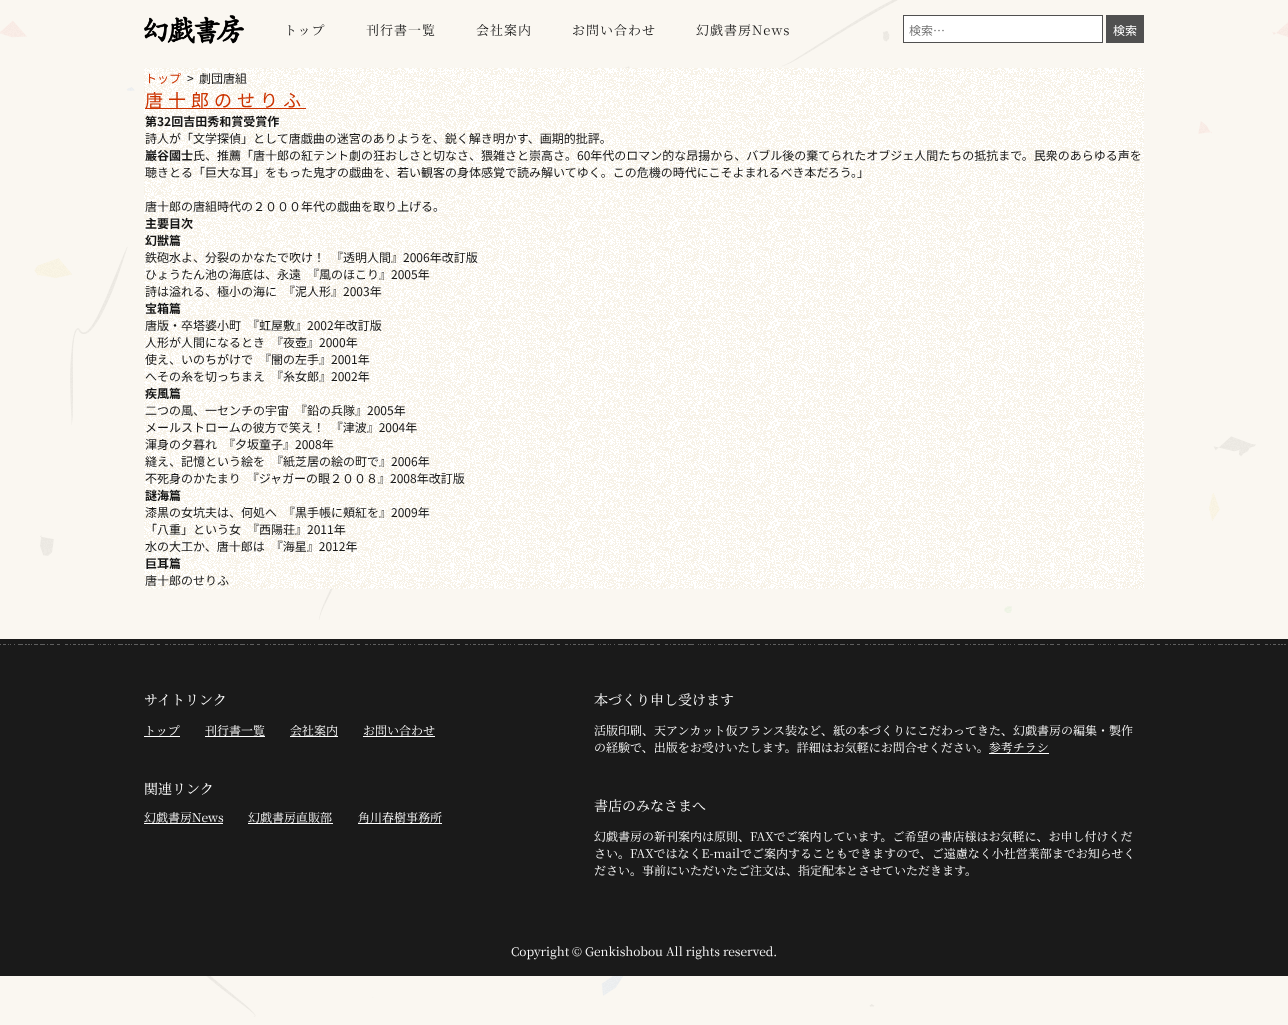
<svg xmlns="http://www.w3.org/2000/svg" width="1288" height="1025" viewBox="0 0 1288 1025">
  <style>
    .t1 { font: 13px Noto Serif JP; letter-spacing: 1px; fill: #161616; }
    .t2 { font: 12px Noto Sans JP; fill: #757575; }
    .t3 { font: 12px Noto Sans JP; fill: #fff; }
    .t4 { font: 12px Noto Sans JP; fill: #c30; }
    .t5 { font: 12px Noto Sans JP; fill: #161616; }
    .t6 { font: 18px Noto Sans JP; letter-spacing: 5px; fill: #c30; }
    .t7 { font: bold 12px Noto Sans JP; fill: #161616; }
    .t8 { font: 14px Noto Serif JP; fill: #fff; }
    .t9 { font: 12px Noto Serif JP; fill: #fff; }
  </style>
  <rect width="100%" height="100%" fill="#faf7f1"/>
  <image x="0" y="0" width="1288" height="1017" href="images/1.png"/>
  <image x="144" y="15" width="100" height="29" href="images/2.png"/>
  <text x="284" y="35" class="t1">トップ</text>
  <text x="366" y="35" class="t1">刊行書一覧</text>
  <text x="476" y="35" class="t1">会社案内</text>
  <text x="572" y="35" class="t1">お問い合わせ</text>
  <text x="696" y="35" class="t1">幻戯書房News</text>
  <rect x="903.5" y="15.5" width="199" height="27" fill="#fff" stroke="#505050"/>
  <text x="909" y="35" class="t2">検索…</text>
  <rect x="1106" y="15" width="38" height="28" fill="#505050"/>
  <text x="1113" y="35" class="t3">検索</text>
  <rect x="144" y="68" width="1000" height="521" fill="#fff"/>
  <image x="144" y="68" width="1000" height="521" href="images/3.png"/>
  <text x="145" y="83" class="t4">トップ</text>
  <text x="187" y="83" class="t5">&gt;</text>
  <text x="199" y="83" class="t5">劇団唐組</text>
  <rect x="145" y="108" width="161" height="1" fill="#c30"/>
  <text x="145" y="107" class="t6">唐十郎のせりふ</text>
  <text x="145" y="126" class="t7">第32回吉田秀和賞受賞作</text>
  <text x="145" y="143" class="t5">詩人が「文学探偵」として唐戯曲の迷宮のありようを、鋭く解き明かす、画期的批評。</text>
  <text x="145" y="160" class="t7">巖谷國士</text>
  <text x="193" y="160" class="t5">氏、推薦「唐十郎の紅テント劇の狂おしさと切なさ、猥雑さと崇高さ。60年代のロマン的な昂揚から、バブル後の棄てられたオブジェ人間たちの抵抗まで。民衆のあらゆる声を</text>
  <text x="145" y="177" class="t5">聴きとる「巨大な耳」をもった鬼才の戯曲を、若い観客の身体感覚で読み解いてゆく。この危機の時代にこそよまれるべき本だろう。」</text>
  <text x="145" y="211" class="t5">唐十郎の唐組時代の２０００年代の戯曲を取り上げる。</text>
  <text x="145" y="228" class="t7">主要目次</text>
  <text x="145" y="245" class="t7">幻獣篇</text>
  <text x="145" y="262" class="t5">鉄砲水よ、分裂のかなたで吹け！　『透明人間』2006年改訂版</text>
  <text x="145" y="279" class="t5">ひょうたん池の海底は、永遠　『風のほこり』2005年</text>
  <text x="145" y="296" class="t5">詩は溢れる、極小の海に　『泥人形』2003年</text>
  <text x="145" y="313" class="t7">宝箱篇</text>
  <text x="145" y="330" class="t5">唐版・卒塔婆小町　『虹屋敷』2002年改訂版</text>
  <text x="145" y="347" class="t5">人形が人間になるとき　『夜壺』2000年</text>
  <text x="145" y="364" class="t5">使え、いのちがけで　『闇の左手』2001年</text>
  <text x="145" y="381" class="t5">へその糸を切っちまえ　『糸女郎』2002年</text>
  <text x="145" y="398" class="t7">疾風篇</text>
  <text x="145" y="415" class="t5">二つの風、一センチの宇宙　『鉛の兵隊』2005年</text>
  <text x="145" y="432" class="t5">メールストロームの彼方で笑え！　『津波』2004年</text>
  <text x="145" y="449" class="t5">渾身の夕暮れ　『夕坂童子』2008年</text>
  <text x="145" y="466" class="t5">縫え、記憶という絵を　『紙芝居の絵の町で』2006年</text>
  <text x="145" y="483" class="t5">不死身のかたまり　『ジャガーの眼２００８』2008年改訂版</text>
  <text x="145" y="500" class="t7">謎海篇</text>
  <text x="145" y="517" class="t5">漆黒の女坑夫は、何処へ　『黒手帳に頬紅を』2009年</text>
  <text x="145" y="534" class="t5">「八重」という女　『西陽荘』2011年</text>
  <text x="145" y="551" class="t5">水の大工か、唐十郎は　『海星』2012年</text>
  <text x="145" y="568" class="t7">巨耳篇</text>
  <text x="145" y="585" class="t5">唐十郎のせりふ</text>
  <rect x="0" y="639" width="1288" height="337" fill="#1a1a1a"/>
  <image x="0" y="644" width="1286" height="1" href="images/4.png"/>
  <text x="144" y="705" class="t8">サイトリンク</text>
  <text x="144" y="735" class="t9">トップ</text>
  <rect x="144" y="736" width="36" height="1" fill="#fff"/>
  <text x="205" y="735" class="t9">刊行書一覧</text>
  <rect x="205" y="736" width="60" height="1" fill="#fff"/>
  <text x="290" y="735" class="t9">会社案内</text>
  <rect x="290" y="736" width="48" height="1" fill="#fff"/>
  <text x="363" y="735" class="t9">お問い合わせ</text>
  <rect x="363" y="736" width="72" height="1" fill="#fff"/>
  <text x="144" y="794" class="t8">関連リンク</text>
  <text x="144" y="822" class="t9">幻戯書房News</text>
  <rect x="144" y="823" width="79" height="1" fill="#fff"/>
  <text x="248" y="822" class="t9">幻戯書房直販部</text>
  <rect x="248" y="823" width="85" height="1" fill="#fff"/>
  <text x="358" y="822" class="t9">角川春樹事務所</text>
  <rect x="358" y="823" width="84" height="1" fill="#fff"/>
  <text x="594" y="705" class="t8">本づくり申し受けます</text>
  <text x="594" y="735" class="t9">活版印刷、天アンカット仮フランス装など、紙の本づくりにこだわってきた、幻戯書房の編集・製作</text>
  <text x="594" y="752" class="t9">の経験で、出版をお受けいたします。詳細はお気軽にお問合せください。参考チラシ</text>
  <rect x="989" y="753" width="60" height="1" fill="#fff"/>
  <text x="594" y="811" class="t8">書店のみなさまへ</text>
  <text x="594" y="841" class="t9">幻戯書房の新刊案内は原則、FAXでご案内しています。ご希望の書店様はお気軽に、お申し付けくだ</text>
  <text x="594" y="858" class="t9">さい。FAXではなくE-mailでご案内することもできますので、ご遠慮なく小社営業部までお知らせく</text>
  <text x="594" y="875" class="t9">ださい。事前にいただいたご注文は、指定配本とさせていただきます。</text>
  <text x="511" y="956" class="t9">Copyright ©︎ Genkishobou All rights reserved.</text>
</svg>
